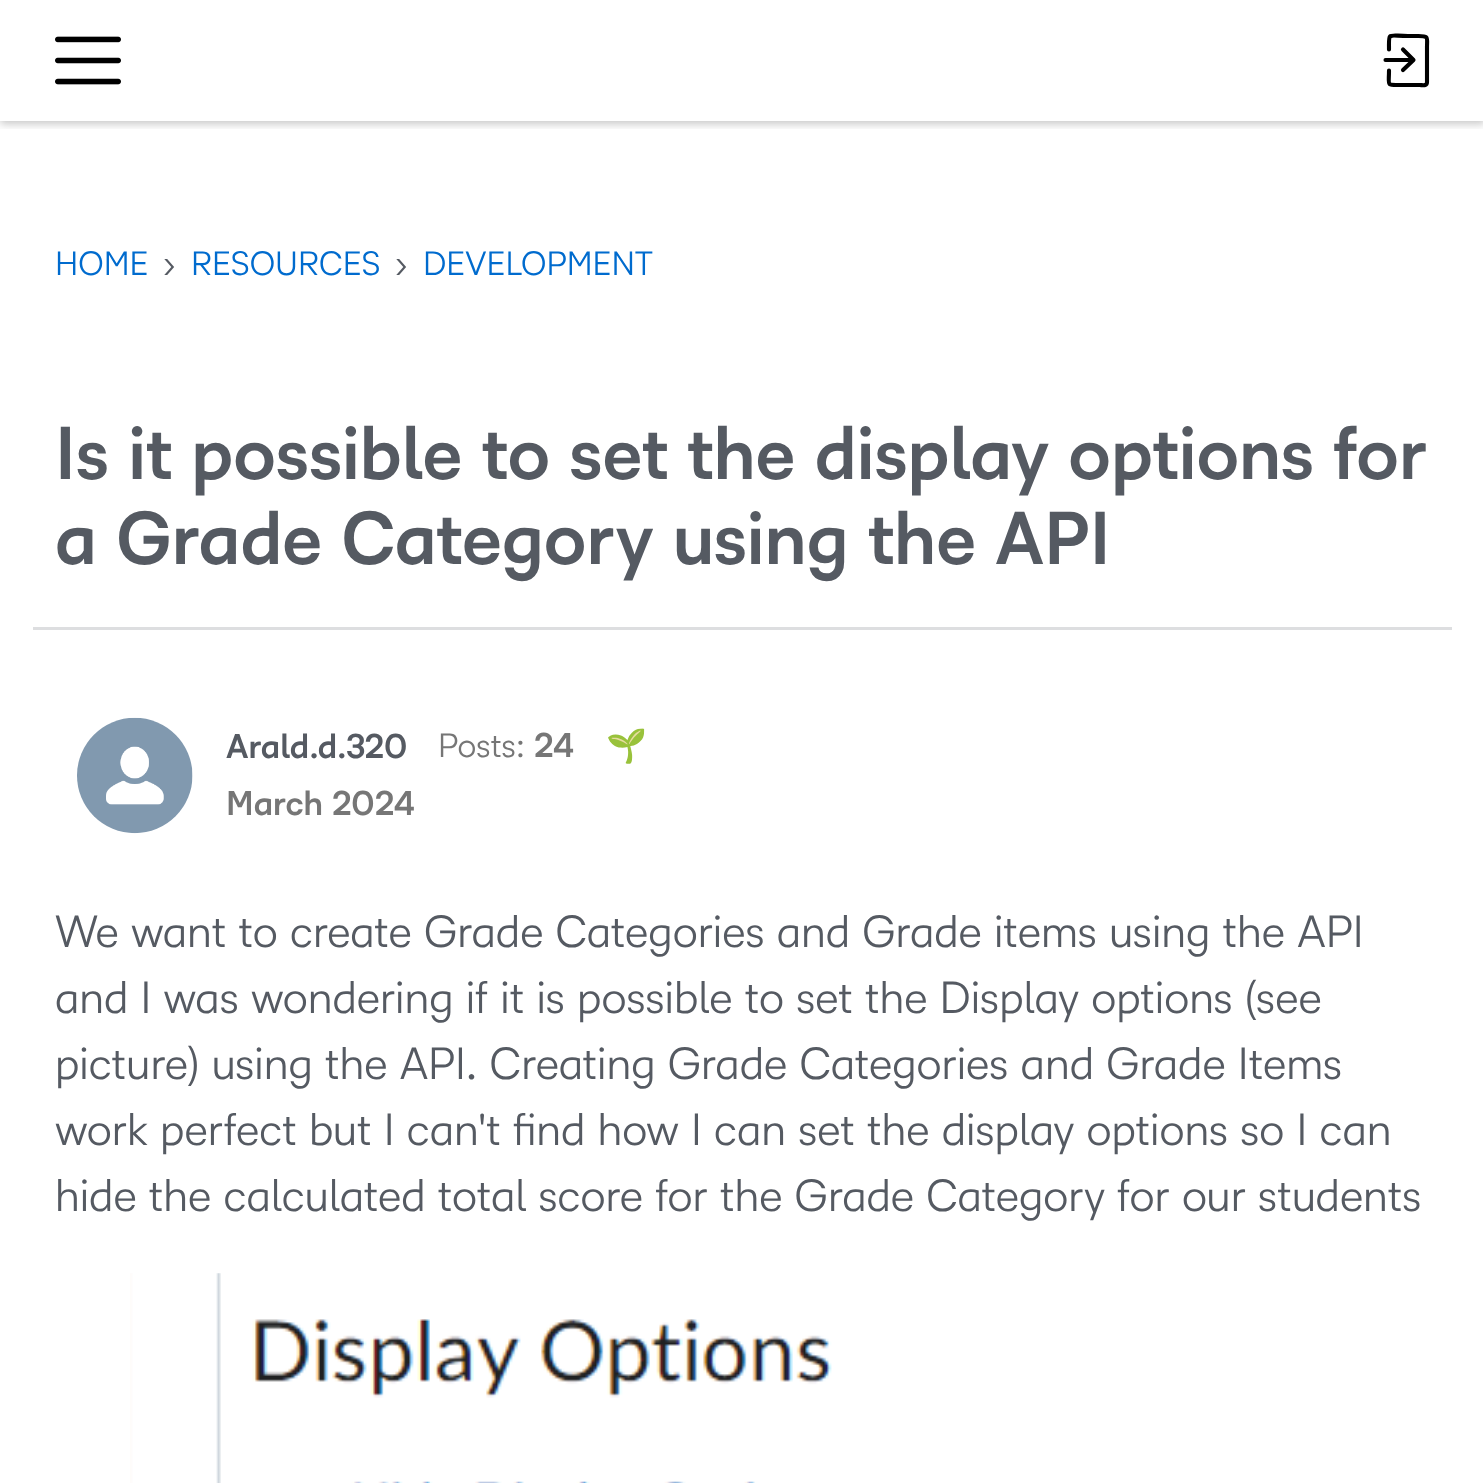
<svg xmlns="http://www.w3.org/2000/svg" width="1483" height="1483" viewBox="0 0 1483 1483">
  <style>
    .t1 { font: 33px 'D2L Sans'; fill: #006bce; }
    .t2 { font: 33px 'D2L Sans'; fill: #555a62; }
    .t3 { font: bold 71.5px 'D2L Sans'; fill: #555a62; }
    .t4 { font: bold 33px 'D2L Sans'; fill: #555a62; }
    .t5 { font: 33px 'D2L Sans'; fill: #767676; }
    .t6 { font: bold 33px 'D2L Sans'; fill: #767676; }
    .t7 { font: 33px Noto Color Emoji; fill: #767676; }
    .t8 { font: 44px 'D2L Sans'; fill: #555a62; }
  </style>
  <defs>
    <clipPath id="clip1"><rect x="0" y="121" width="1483" height="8"/></clipPath>
  </defs>
  <rect width="100%" height="100%" fill="#fff"/>
  <g clip-path="url(#clip1)">
    <rect x="0" y="3" width="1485" height="121" fill="#00000038" filter="blur(4px)"/>
  </g>
  <image x="55" y="36" width="66" height="49" href="images/1.png"/>
  <path d="M1403 70L1413.5 60L1403 49.5" fill="none" stroke="#000" stroke-width="4.1" stroke-linecap="round" stroke-linejoin="round"/>
  <path d="M1412.5 60H1385.5" fill="none" stroke="#000" stroke-width="4.1" stroke-linecap="round"/>
  <path d="M1389 49.5C1389 31.5 1387 36 1408 36H1418.5C1429 36 1427 37 1427 47.5V82C1427 86.5 1422.5 85 1419.5 85H1403C1385.5 85 1389 87 1389 70.5" fill="none" stroke="#000" stroke-width="4.1" stroke-linecap="round" stroke-linejoin="round"/>
  <text x="55" y="275" class="t1">HOME</text>
  <text x="163" y="275" class="t2">›</text>
  <text x="191" y="275" class="t1">RESOURCES</text>
  <text x="395" y="275" class="t2">›</text>
  <text x="423" y="275" class="t1">DEVELOPMENT</text>
  <text x="55" y="479" class="t3">Is it possible to set the display options for</text>
  <text x="55" y="564" class="t3">a Grade Category using the API</text>
  <rect x="33" y="627" width="1419" height="3" fill="#dddee0"/>
  <image x="77" y="717" width="116" height="117" href="images/2.png"/>
  <text x="226" y="758" class="t4">Arald.d.320</text>
  <text x="438" y="757" class="t5">Posts:</text>
  <text x="534" y="757" class="t6">24</text>
  <text x="606" y="757" class="t7">🌱</text>
  <text x="226" y="815" class="t6">March 2024</text>
  <text x="55" y="947" class="t8">We want to create Grade Categories and Grade items using the API</text>
  <text x="55" y="1013" class="t8">and I was wondering if it is possible to set the Display options (see</text>
  <text x="55" y="1079" class="t8">picture) using the API. Creating Grade Categories and Grade Items</text>
  <text x="55" y="1145" class="t8">work perfect but I can't find how I can set the display options so I can</text>
  <text x="55" y="1211" class="t8">hide the calculated total score for the Grade Category for our students</text>
  <image x="130" y="1273" width="702" height="210" href="images/3.png"/>
</svg>
